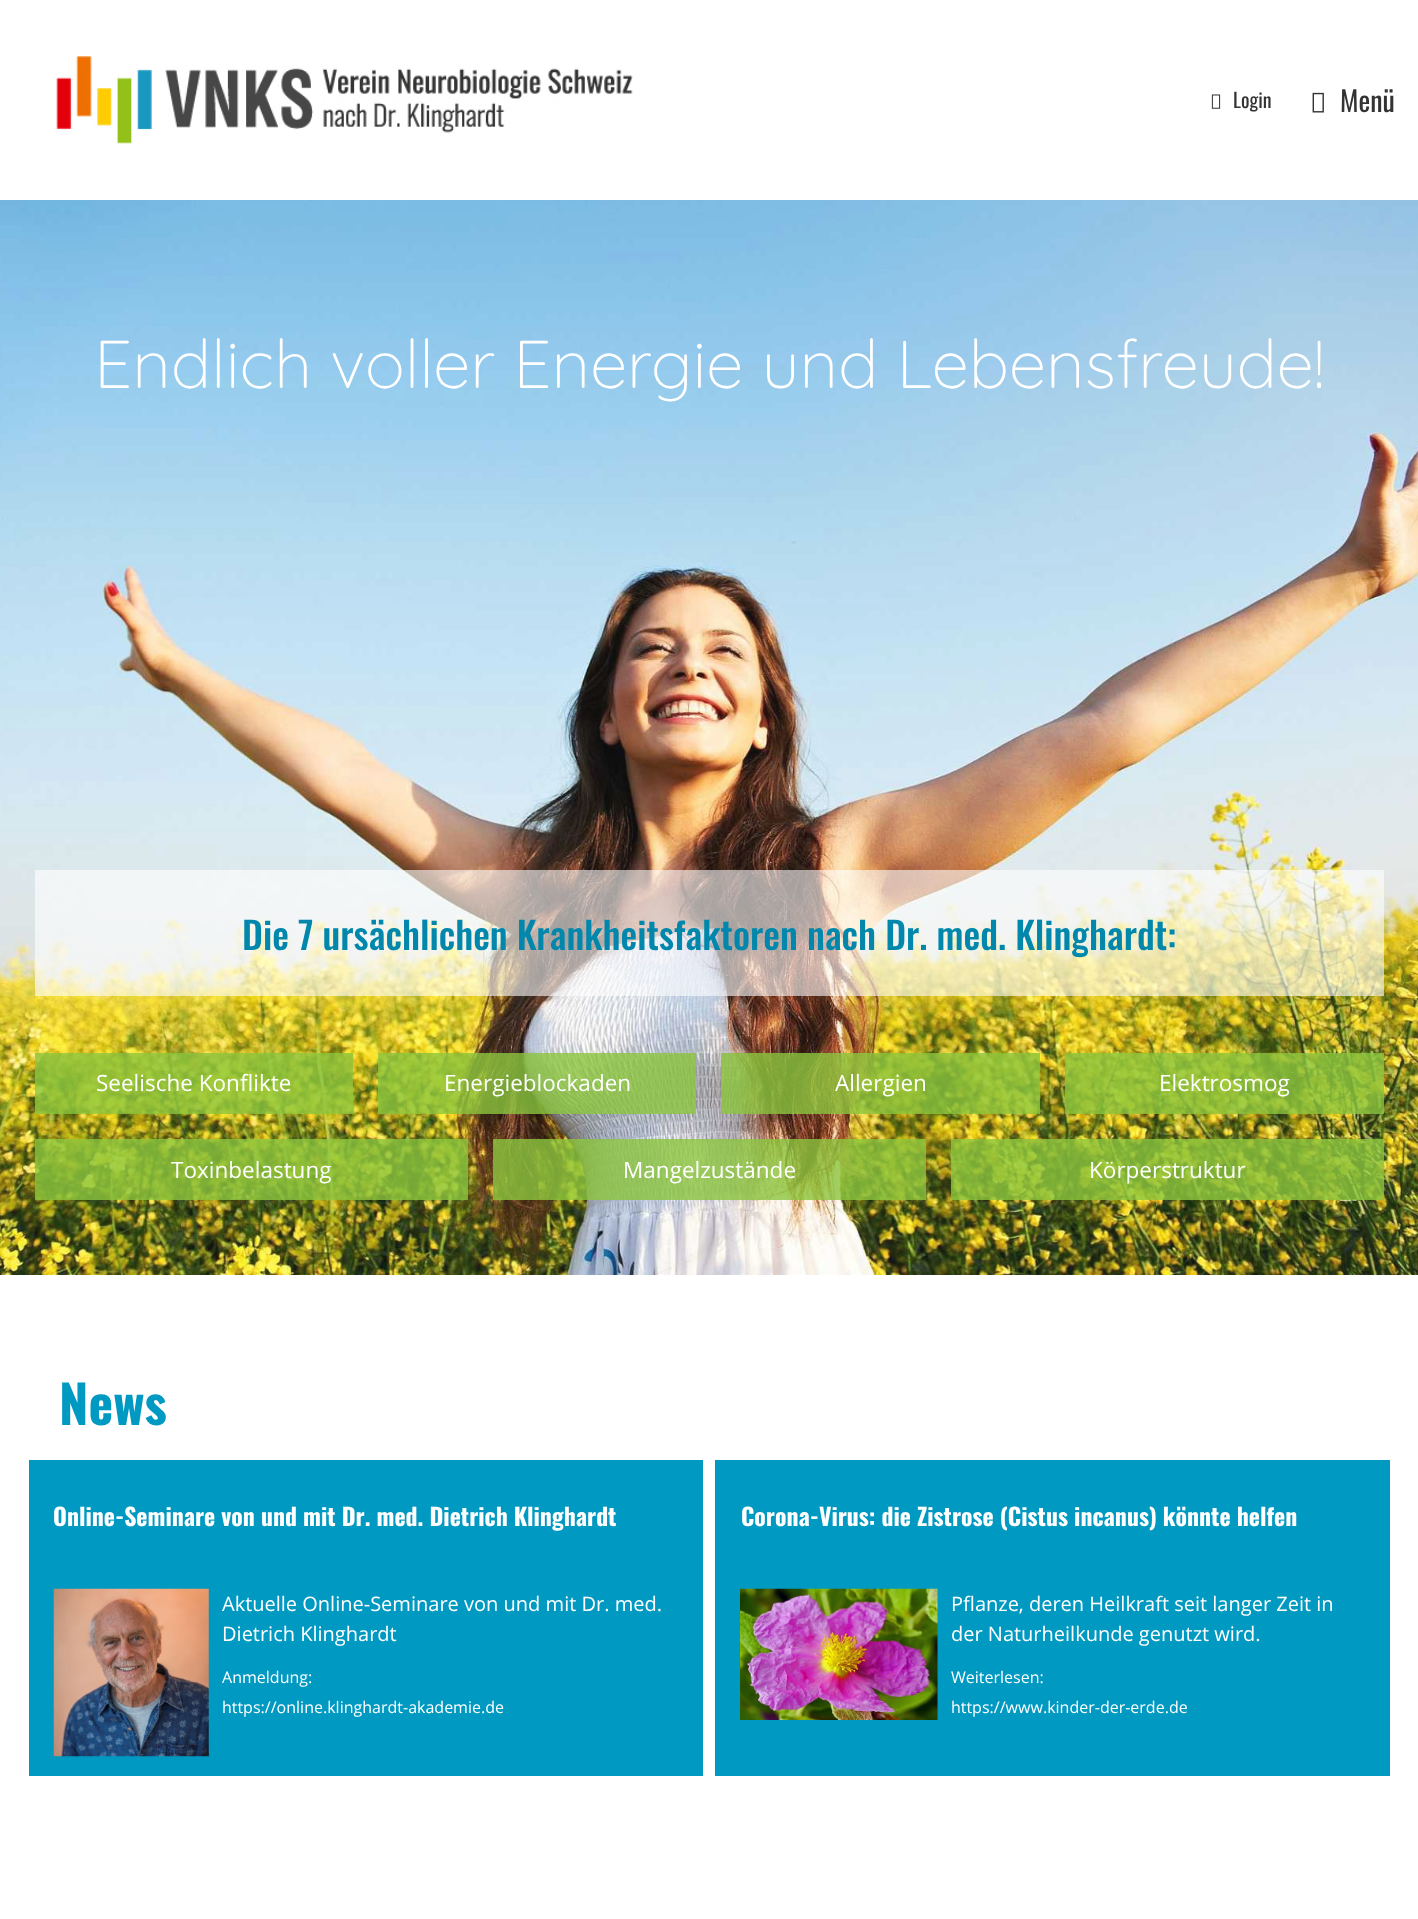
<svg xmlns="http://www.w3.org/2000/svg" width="1418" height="1919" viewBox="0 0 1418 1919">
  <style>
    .t1 { font: 20px Oswald; fill: #333; }
    .t2 { font: 28px Oswald; fill: #333; }
    .t3 { font: 300 67.5px Quicksand; fill: #fff; }
    .t4 { font: 500 37.5px Oswald; fill: #0087ab; }
    .t5 { font: 22.5px Open Sans; fill: #fff; }
    .t6 { font: bold 52.5px Oswald; fill: #0099c2; }
    .t7 { font: bold 23.75px Oswald; fill: #fff; }
    .t8 { font: 20px Open Sans; fill: #fff; }
    .t9 { font: 16px Open Sans; fill: #fff; }
  </style>
  <rect width="100%" height="100%" fill="#fff"/>
  <image x="56" y="56" width="577" height="88" href="images/1.png"/>
  <image x="1211" y="94" width="10" height="15" href="images/2.png"/>
  <text x="1233" y="108" class="t1">Login</text>
  <image x="1312" y="92" width="12" height="21" href="images/3.png"/>
  <text x="1340" y="112" class="t2">Menü</text>
  <image x="0" y="200" width="1418" height="1075" href="images/4.png"/>
  <text x="94" y="388" class="t3">Endlich voller Energie und Lebensfreude!</text>
  <rect x="35" y="870" width="1349" height="126" fill="#ffffff99"/>
  <text x="242" y="950" class="t4">Die 7 ursächlichen Krankheitsfaktoren nach Dr. med. Klinghardt:</text>
  <rect x="35" y="1053" width="318" height="61" fill="#8cc63fcc"/>
  <text x="96" y="1091" class="t5">Seelische Konflikte</text>
  <rect x="378" y="1053" width="318" height="61" fill="#8cc63fcc"/>
  <text x="444" y="1091" class="t5">Energieblockaden</text>
  <rect x="721" y="1053" width="319" height="61" fill="#8cc63fcc"/>
  <text x="835" y="1091" class="t5">Allergien</text>
  <rect x="1065" y="1053" width="319" height="61" fill="#8cc63fcc"/>
  <text x="1159" y="1091" class="t5">Elektrosmog</text>
  <rect x="35" y="1139" width="433" height="61" fill="#8cc63fcc"/>
  <text x="171" y="1178" class="t5">Toxinbelastung</text>
  <rect x="493" y="1139" width="433" height="61" fill="#8cc63fcc"/>
  <text x="623" y="1178" class="t5">Mangelzustände</text>
  <rect x="951" y="1139" width="433" height="61" fill="#8cc63fcc"/>
  <text x="1089" y="1178" class="t5">Körperstruktur</text>
  <text x="59" y="1425" class="t6">News</text>
  <rect x="29" y="1460" width="674" height="316" fill="#0099c2"/>
  <text x="53" y="1526" class="t7">Online-Seminare von und mit Dr. med. Dietrich Klinghardt</text>
  <image x="53" y="1588" width="156" height="169" href="images/5.png"/>
  <text x="222" y="1611" class="t8">Aktuelle Online-Seminare von und mit Dr. med.</text>
  <text x="222" y="1641" class="t8">Dietrich Klinghardt</text>
  <text x="222" y="1683" class="t9">Anmeldung:</text>
  <text x="222" y="1713" class="t9">https://online.klinghardt-akademie.de</text>
  <rect x="715" y="1460" width="675" height="316" fill="#0099c2"/>
  <text x="741" y="1526" class="t7">Corona-Virus: die Zistrose (Cistus incanus) könnte helfen</text>
  <image x="740" y="1588" width="198" height="132" href="images/6.png"/>
  <text x="951" y="1611" class="t8">Pflanze, deren Heilkraft seit langer Zeit in</text>
  <text x="951" y="1641" class="t8">der Naturheilkunde genutzt wird.</text>
  <text x="951" y="1683" class="t9">Weiterlesen:</text>
  <text x="951" y="1713" class="t9">https://www.kinder-der-erde.de</text>
</svg>
